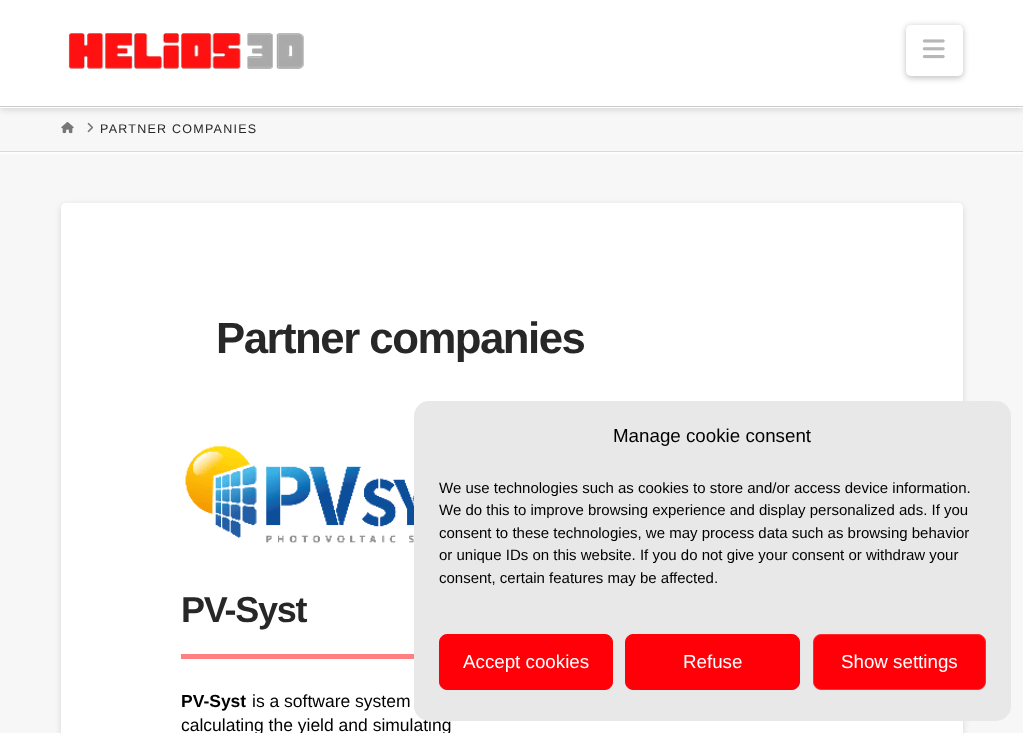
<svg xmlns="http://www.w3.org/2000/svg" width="1023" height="733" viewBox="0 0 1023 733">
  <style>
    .t1 { font: 12.5px Liberation Sans; letter-spacing: 1.25px; fill: #272727; }
    .t2 { font: bold 43.75px Liberation Sans; letter-spacing: -1.5px; fill: #272727; }
    .t3 { font: bold 36px Liberation Sans; letter-spacing: -1.25px; fill: #272727; }
    .t4 { font: bold 17.5px Liberation Sans; fill: #000; }
    .t5 { font: 17.5px Liberation Sans; fill: #000; }
    .t6 { font: 18.75px Liberation Sans; fill: #000; }
    .t7 { font: 15px Liberation Sans; fill: #000; }
    .t8 { font: 18.75px Liberation Sans; fill: #fff; }
  </style>
  <rect width="100%" height="100%" fill="#f7f7f7"/>
  <rect x="0" y="3" width="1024" height="107" fill="#00000021" filter="blur(3px)"/>
  <rect x="0" y="0" width="1023" height="108" fill="#fff"/>
  <rect x="0" y="106" width="1023" height="1" fill="#ccc"/>
  <image x="68" y="33" width="236" height="36" href="images/1.png"/>
  <rect x="906" y="26" width="57" height="52" rx="5" fill="#00000040" filter="blur(3px)"/>
  <rect x="906" y="25" width="57" height="51" rx="5" fill="#fff"/>
  <image x="922" y="39" width="23" height="20" href="images/2.png"/>
  <path d="M0 152V154H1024V109V152Z" fill="#fdfdfd"/>
  <rect x="0" y="151" width="1023" height="1" fill="#dadada"/>
  <image x="61" y="122" width="13" height="12" href="images/3.png"/>
  <image x="87" y="122" width="7" height="11" href="images/4.png"/>
  <text x="100" y="133" class="t1">PARTNER COMPANIES</text>
  <rect x="61" y="205" width="902" height="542" rx="5" fill="#00000021" filter="blur(3px)"/>
  <rect x="61" y="203" width="902" height="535" rx="5" fill="#fff"/>
  <text x="216" y="353" class="t2">Partner companies</text>
  <image x="185" y="446" width="229" height="98" href="images/5.png"/>
  <text x="181" y="622" class="t3">PV-Syst</text>
  <rect x="181" y="654" width="233" height="5" fill="#ff8080"/>
  <text x="181" y="707" class="t4">PV-Syst</text>
  <text x="252" y="707" class="t5">is a software system</text>
  <text x="181" y="731" class="t5">calculating the yield and simulating</text>
  <rect x="414" y="401" width="597" height="320" rx="15" fill="#e8e8e8"/>
  <text x="613" y="442" class="t6">Manage cookie consent</text>
  <text x="439" y="493" class="t7">We use technologies such as cookies to store and/or access device information.</text>
  <text x="439" y="515" class="t7">We do this to improve browsing experience and display personalized ads. If you</text>
  <text x="439" y="538" class="t7">consent to these technologies, we may process data such as browsing behavior</text>
  <text x="439" y="560" class="t7">or unique IDs on this website. If you do not give your consent or withdraw your</text>
  <text x="439" y="583" class="t7">consent, certain features may be affected.</text>
  <rect x="439.5" y="634.5" width="173" height="55" rx="7.5" fill="#ff0008" stroke="#ff0008"/>
  <text x="463" y="668" class="t8">Accept cookies</text>
  <rect x="625.5" y="634.5" width="174" height="55" rx="7.5" fill="#ff0008" stroke="#ff0008"/>
  <text x="683" y="668" class="t8">Refuse</text>
  <rect x="813.5" y="634.5" width="172" height="55" rx="7.5" fill="#ff0008" stroke="#ff2d2d"/>
  <text x="841" y="668" class="t8">Show settings</text>
</svg>
